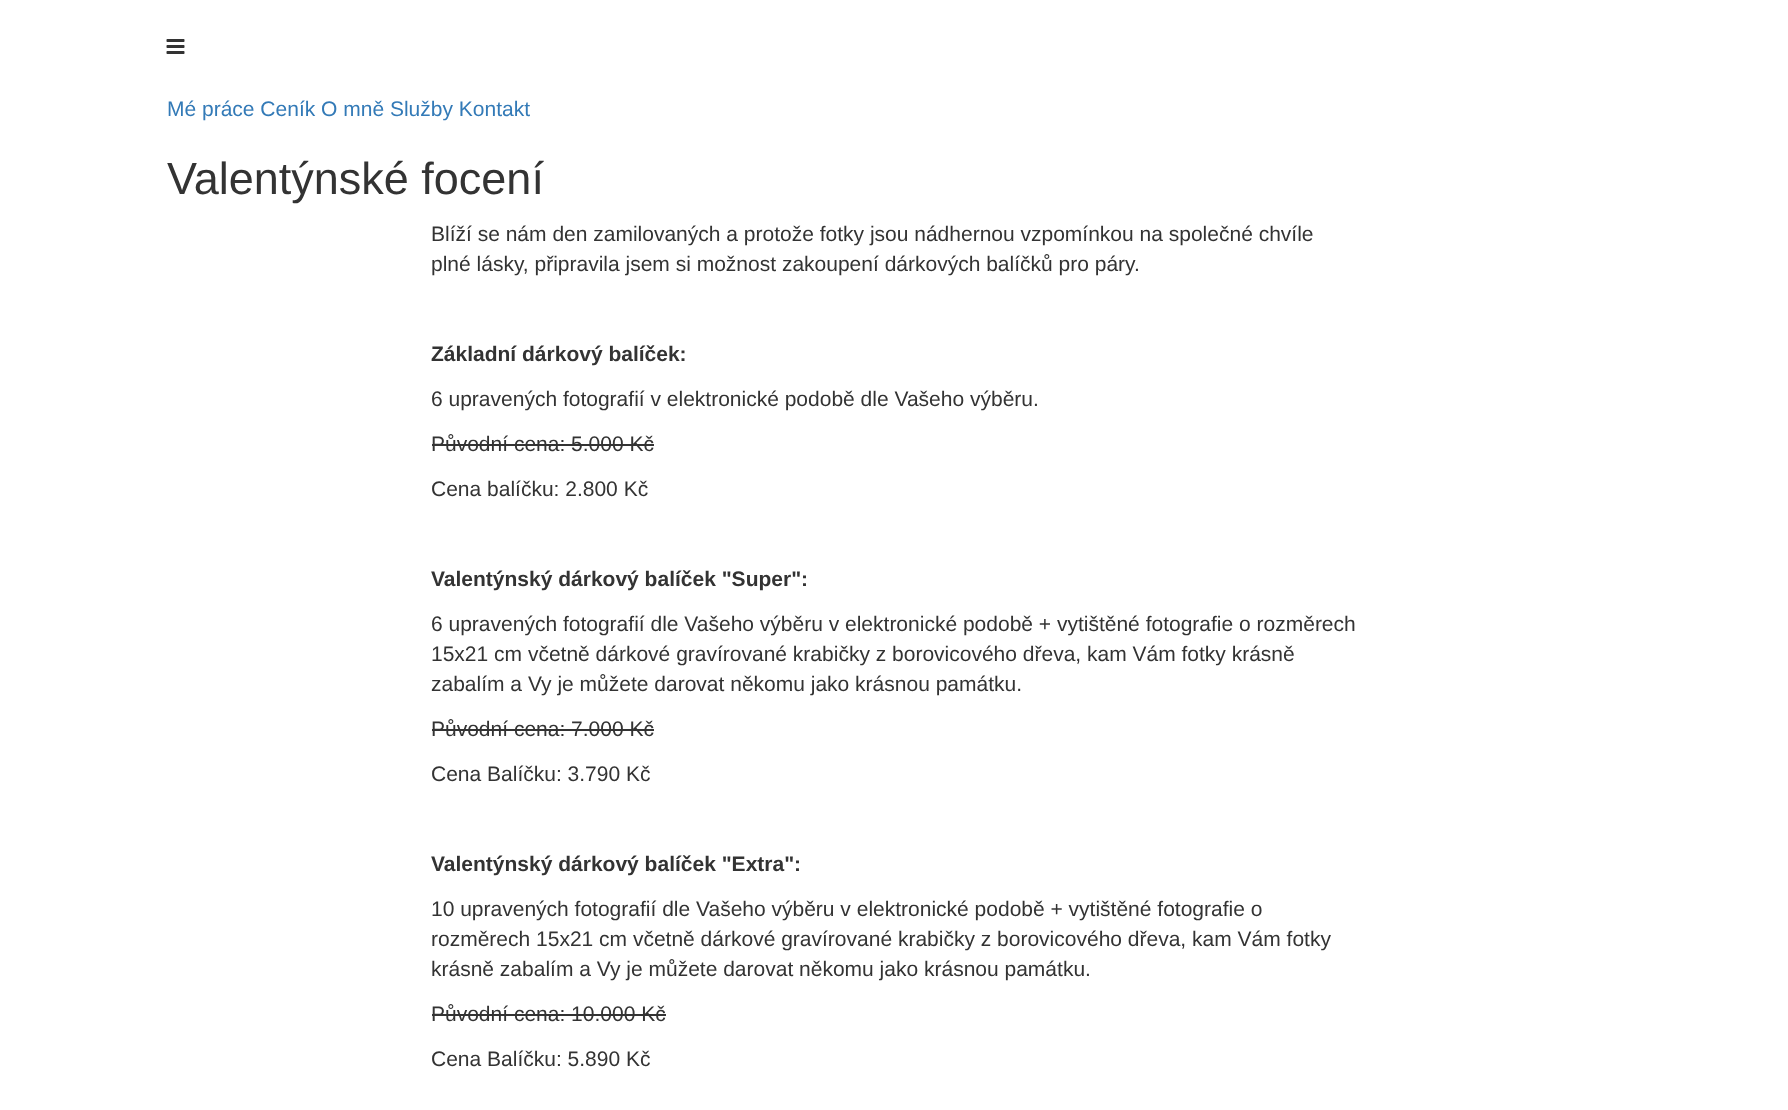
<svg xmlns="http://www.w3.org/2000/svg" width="1788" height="1110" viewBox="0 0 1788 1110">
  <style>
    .t1 { font: 21px Liberation Sans; fill: #337ab7; }
    .t2 { font: 45px Liberation Sans; fill: #333; }
    .t3 { font: 21px Liberation Sans; fill: #333; }
    .t4 { font: bold 21px Liberation Sans; fill: #333; }
  </style>
  <rect width="100%" height="100%" fill="#fff"/>
  <image x="166" y="39" width="19" height="15" href="images/1.png"/>
  <text x="167" y="116" class="t1">Mé práce Ceník O mně Služby Kontakt</text>
  <text x="167" y="194" class="t2">Valentýnské focení</text>
  <text x="431" y="241" class="t3">Blíží se nám den zamilovaných a protože fotky jsou nádhernou vzpomínkou na společné chvíle</text>
  <text x="431" y="271" class="t3">plné lásky, připravila jsem si možnost zakoupení dárkových balíčků pro páry.</text>
  <text x="431" y="361" class="t4">Základní dárkový balíček:</text>
  <text x="431" y="406" class="t3">6 upravených fotografií v elektronické podobě dle Vašeho výběru.</text>
  <text x="431" y="451" class="t3">Původní cena: 5.000 Kč</text>
  <rect x="432" y="444" width="222" height="2" fill="#333"/>
  <text x="431" y="496" class="t3">Cena balíčku: 2.800 Kč</text>
  <text x="431" y="586" class="t4">Valentýnský dárkový balíček "Super":</text>
  <text x="431" y="631" class="t3">6 upravených fotografií dle Vašeho výběru v elektronické podobě + vytištěné fotografie o rozměrech</text>
  <text x="431" y="661" class="t3">15x21 cm včetně dárkové gravírované krabičky z borovicového dřeva, kam Vám fotky krásně</text>
  <text x="431" y="691" class="t3">zabalím a Vy je můžete darovat někomu jako krásnou památku.</text>
  <text x="431" y="736" class="t3">Původní cena: 7.000 Kč</text>
  <rect x="432" y="729" width="222" height="2" fill="#333"/>
  <text x="431" y="781" class="t3">Cena Balíčku: 3.790 Kč</text>
  <text x="431" y="871" class="t4">Valentýnský dárkový balíček "Extra":</text>
  <text x="431" y="916" class="t3">10 upravených fotografií dle Vašeho výběru v elektronické podobě + vytištěné fotografie o</text>
  <text x="431" y="946" class="t3">rozměrech 15x21 cm včetně dárkové gravírované krabičky z borovicového dřeva, kam Vám fotky</text>
  <text x="431" y="976" class="t3">krásně zabalím a Vy je můžete darovat někomu jako krásnou památku.</text>
  <text x="431" y="1021" class="t3">Původní cena: 10.000 Kč</text>
  <rect x="432" y="1014" width="234" height="2" fill="#333"/>
  <text x="431" y="1066" class="t3">Cena Balíčku: 5.890 Kč</text>
</svg>
